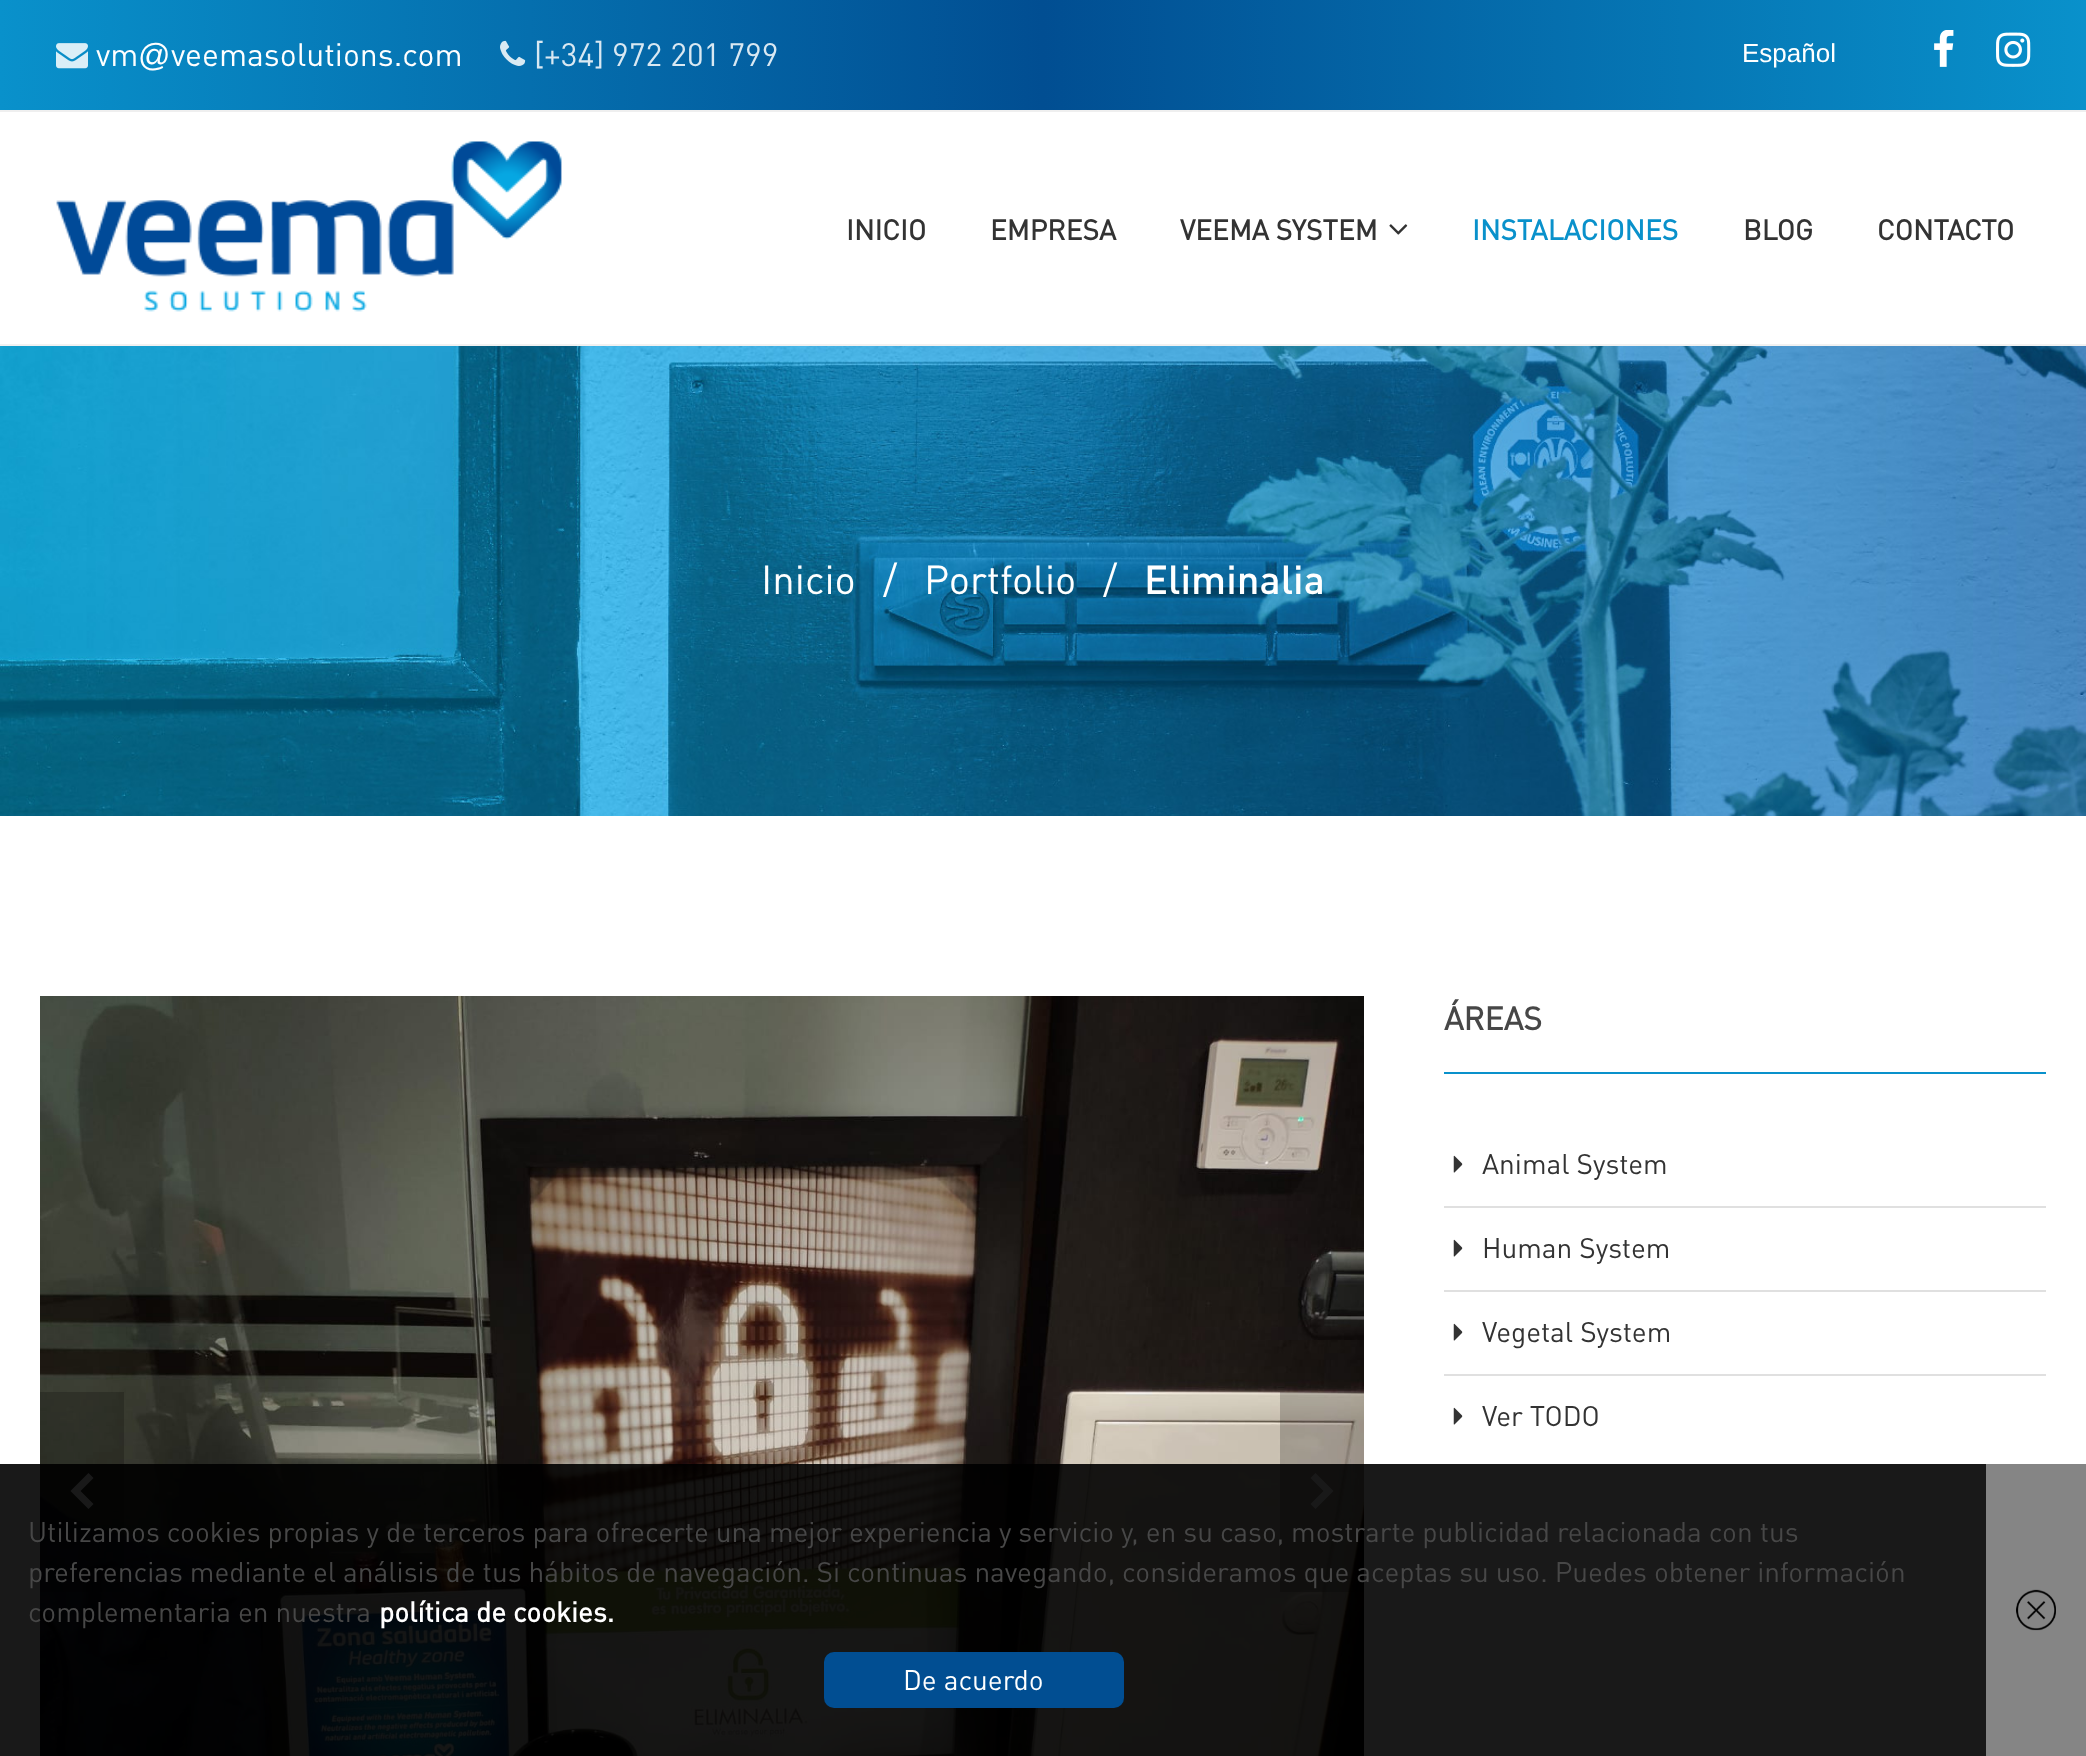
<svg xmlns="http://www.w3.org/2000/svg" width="2086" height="1756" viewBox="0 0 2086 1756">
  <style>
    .t1 { font: 32px DIN; fill: #fff; }
    .t2 { font: 32px Liberation Sans; fill: #fff; }
    .t3 { font: 32px DIN; fill: #d9e8f2; }
    .t4 { font: 26px Liberation Sans; fill: #fff; }
    .t5 { font: bold 28px DIN; fill: #333; }
    .t6 { font: bold 28px DIN; fill: #0991cb; }
    .t7 { font: 40px DIN; fill: #fff; }
    .t8 { font: 500 40px DIN; fill: #fff; }
    .t9 { font: bold 32px DIN; fill: #474747; }
    .t10 { font: 28px DIN; fill: #333; }
    .t11 { font: 28px DIN; fill: #474747; }
    .t12 { font: bold 28px DIN; fill: #fff; }
    .t13 { font: 28px DIN; fill: #fff; }
  </style>
  <defs>
    <linearGradient id="g1" gradientUnits="userSpaceOnUse" x1="0" y1="55" x2="2086" y2="55"><stop offset="0" stop-color="#0991cb"/><stop offset="0.5" stop-color="#014e92"/><stop offset="1" stop-color="#0991cb"/></linearGradient>
  </defs>
  <rect width="100%" height="100%" fill="#fff"/>
  <rect x="0" y="0" width="2086" height="110" fill="url(#g1)"/>
  <rect x="0" y="110" width="2086" height="2" fill="#efefef"/>
  <image x="56" y="43" width="32" height="26" href="images/1.png"/>
  <text x="96" y="66" class="t1">vm</text>
  <text x="138" y="66" class="t2">@</text>
  <text x="171" y="66" class="t1">veemasolutions.com</text>
  <image x="500" y="40" width="26" height="26" href="images/2.png"/>
  <text x="534" y="66" class="t3">[+34] 972 201 799</text>
  <text x="1742" y="62" class="t4">Español</text>
  <image x="1934" y="30" width="20" height="37" href="images/3.png"/>
  <image x="1996" y="32" width="35" height="35" href="images/4.png"/>
  <rect x="0" y="344" width="2086" height="2" fill="#f1f1f1"/>
  <image x="56" y="141" width="506" height="171" href="images/5.png"/>
  <text x="846" y="240" class="t5">INICIO</text>
  <text x="990" y="240" class="t5">EMPRESA</text>
  <text x="1180" y="240" class="t5">VEEMA SYSTEM</text>
  <image x="1389" y="224" width="19" height="11" href="images/6.png"/>
  <text x="1472" y="240" class="t6">INSTALACIONES</text>
  <text x="1743" y="240" class="t5">BLOG</text>
  <text x="1877" y="240" class="t5">CONTACTO</text>
  <image x="0" y="346" width="2086" height="470" href="images/7.png"/>
  <text x="761" y="594" class="t7">Inicio</text>
  <text x="883" y="594" class="t7">/</text>
  <text x="924" y="594" class="t7">Portfolio</text>
  <text x="1103" y="594" class="t7">/</text>
  <text x="1144" y="594" class="t8">Eliminalia</text>
  <image x="40" y="996" width="1324" height="760" href="images/8.png"/>
  <rect x="40" y="1392" width="84" height="200" fill="#00000033"/>
  <path d="M88.5 1473L70.5 1491L88.5 1509L93.5 1504L80.5 1491L93.5 1478Z" fill="#fff"/>
  <rect x="1280" y="1392" width="84" height="200" fill="#00000033"/>
  <path d="M1315.5 1509L1333.5 1491L1315.5 1473L1310.5 1478L1323.5 1491L1310.5 1504Z" fill="#fff"/>
  <rect x="1444" y="1072" width="602" height="2" fill="#0991cb"/>
  <text x="1444" y="1030" class="t9">ÁREAS</text>
  <rect x="1444" y="1206" width="602" height="2" fill="#e0e0e0"/>
  <image x="1453" y="1155" width="10" height="18" href="images/9.png"/>
  <text x="1482" y="1174" class="t10">Animal System</text>
  <rect x="1444" y="1290" width="602" height="2" fill="#e0e0e0"/>
  <image x="1453" y="1239" width="10" height="18" href="images/9.png"/>
  <text x="1482" y="1258" class="t10">Human System</text>
  <rect x="1444" y="1374" width="602" height="2" fill="#e0e0e0"/>
  <image x="1453" y="1323" width="10" height="18" href="images/9.png"/>
  <text x="1482" y="1342" class="t10">Vegetal System</text>
  <image x="1453" y="1407" width="10" height="18" href="images/9.png"/>
  <text x="1482" y="1426" class="t10">Ver TODO</text>
  <rect x="0" y="1464" width="1986" height="292" fill="#000000e6"/>
  <text x="28" y="1542" class="t11">Utilizamos cookies propias y de terceros para ofrecerte una mejor experiencia y servicio y, en su caso, mostrarte publicidad relacionada con tus</text>
  <text x="28" y="1582" class="t11">preferencias mediante el análisis de tus hábitos de navegación. Si continuas navegando, consideramos que aceptas su uso. Puedes obtener información</text>
  <text x="28" y="1622" class="t11">complementaria en nuestra</text>
  <text x="379" y="1622" class="t12">política de cookies.</text>
  <rect x="824" y="1652" width="300" height="56" rx="10" fill="#014e92"/>
  <text x="903" y="1690" class="t13">De acuerdo</text>
  <rect x="1986" y="1464" width="100" height="292" fill="#858585"/>
  <image x="2016" y="1589" width="40" height="42" href="images/10.png"/>
</svg>
